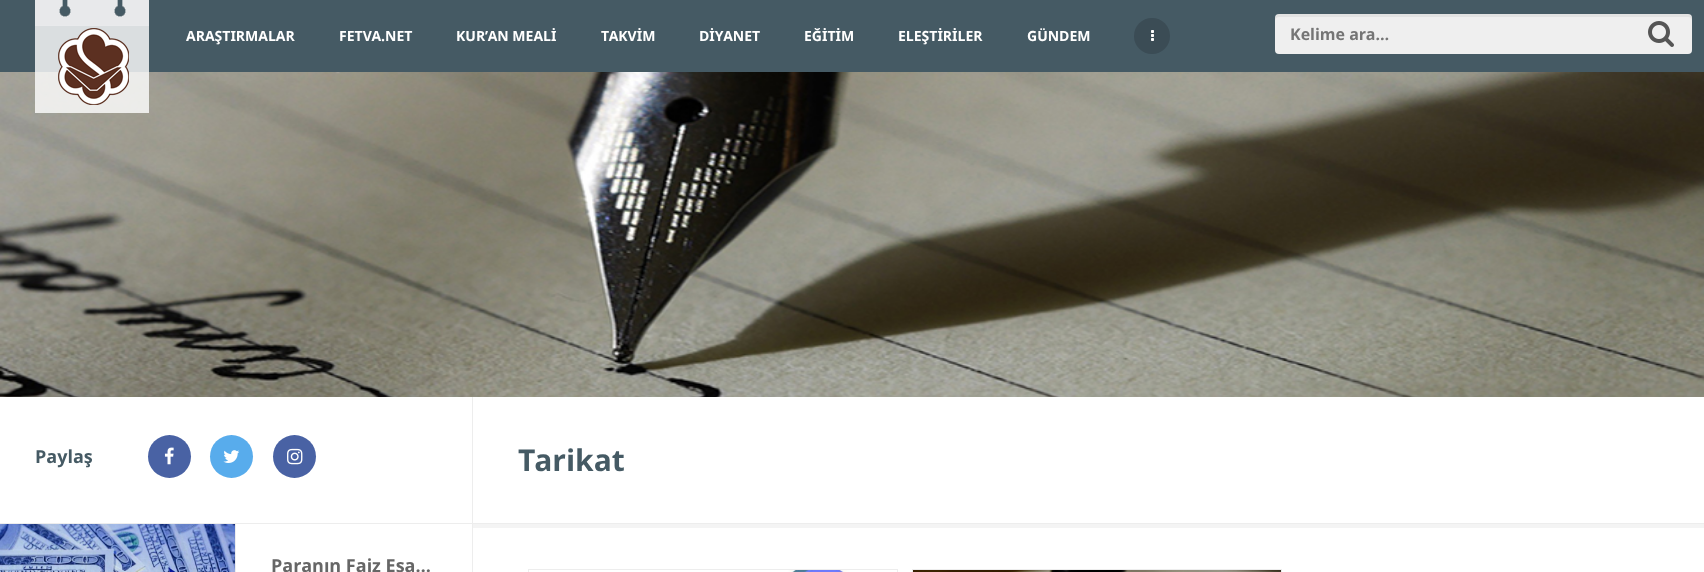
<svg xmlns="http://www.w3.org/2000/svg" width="1704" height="572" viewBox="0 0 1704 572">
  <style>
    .t1 { font: bold 14px Noto Sans; fill: #fff; }
    .t2 { font: bold 16px Open Sans; fill: #757575; }
    .t3 { font: bold 18px Noto Sans; fill: #455a64; }
    .t4 { font: bold 18px Noto Sans; fill: #666; }
    .t5 { font: bold 30px Noto Sans; fill: #455a64; }
  </style>
  <defs>
    <clipPath id="clip1"><rect x="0" y="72" width="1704" height="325"/></clipPath>
  </defs>
  <rect width="100%" height="100%" fill="#fff"/>
  <image x="0" y="72" width="1704" height="325" href="images/1.png"/>
  <g clip-path="url(#clip1)">
    <rect x="1704" y="72" width="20" height="325" fill="#00000066" filter="blur(35px)"/>
  </g>
  <rect x="0" y="0" width="1704" height="72" fill="#455a64"/>
  <image x="35" y="0" width="114" height="113" href="images/2.png"/>
  <text x="186" y="41" class="t1">ARAŞTIRMALAR</text>
  <text x="339" y="41" class="t1">FETVA.NET</text>
  <text x="456" y="41" class="t1">KUR’AN MEALİ</text>
  <text x="601" y="41" class="t1">TAKVİM</text>
  <text x="699" y="41" class="t1">DİYANET</text>
  <text x="804" y="41" class="t1">EĞİTİM</text>
  <text x="898" y="41" class="t1">ELEŞTİRİLER</text>
  <text x="1027" y="41" class="t1">GÜNDEM</text>
  <circle cx="1152" cy="36" r="18" fill="#3b4c55"/>
  <image x="1151" y="30" width="3" height="11" href="images/3.png"/>
  <rect x="1275" y="14" width="417" height="40" rx="4" fill="#efefef"/>
  <path d="M1279 17H1688C1690 17 1692 19 1692 21V18C1692 16 1690 14 1688 14H1279C1277 14 1275 16 1275 18V21C1275 19 1277 17 1279 17Z" fill="#0000000d"/>
  <text x="1290" y="40" class="t2">Kelime ara…</text>
  <image x="1648" y="21" width="26" height="26" href="images/4.png"/>
  <rect x="0" y="523" width="472" height="1" fill="#ededed"/>
  <text x="35" y="463" class="t3">Paylaş</text>
  <circle cx="169.5" cy="456.5" r="21.5" fill="#4962a4"/>
  <image x="164" y="447" width="10" height="18" href="images/5.png"/>
  <circle cx="231.5" cy="456.5" r="21.5" fill="#58acec"/>
  <image x="223" y="450" width="17" height="13" href="images/6.png"/>
  <circle cx="294.5" cy="456.5" r="21.5" fill="#4962a4"/>
  <image x="287" y="448" width="16" height="17" href="images/7.png"/>
  <rect x="235" y="524" width="1" height="48" fill="#ededed"/>
  <image x="0" y="524" width="235" height="48" href="images/8.png"/>
  <text x="271" y="572" class="t4">Paranın Faiz Esa…</text>
  <rect x="472" y="397" width="1" height="175" fill="#ededed"/>
  <rect x="473" y="524" width="1231" height="4" fill="#f4f4f4"/>
  <rect x="473" y="523" width="1231" height="1" fill="#ededed"/>
  <text x="518" y="471" class="t5">Tarikat</text>
  <rect x="528.5" y="569.5" width="369" height="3" fill="none" stroke="#ededed"/>
  <image x="529" y="570" width="368" height="2" href="images/9.png"/>
  <rect x="912.5" y="569.5" width="369" height="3" fill="none" stroke="#ededed"/>
  <image x="913" y="570" width="368" height="2" href="images/10.png"/>
</svg>
